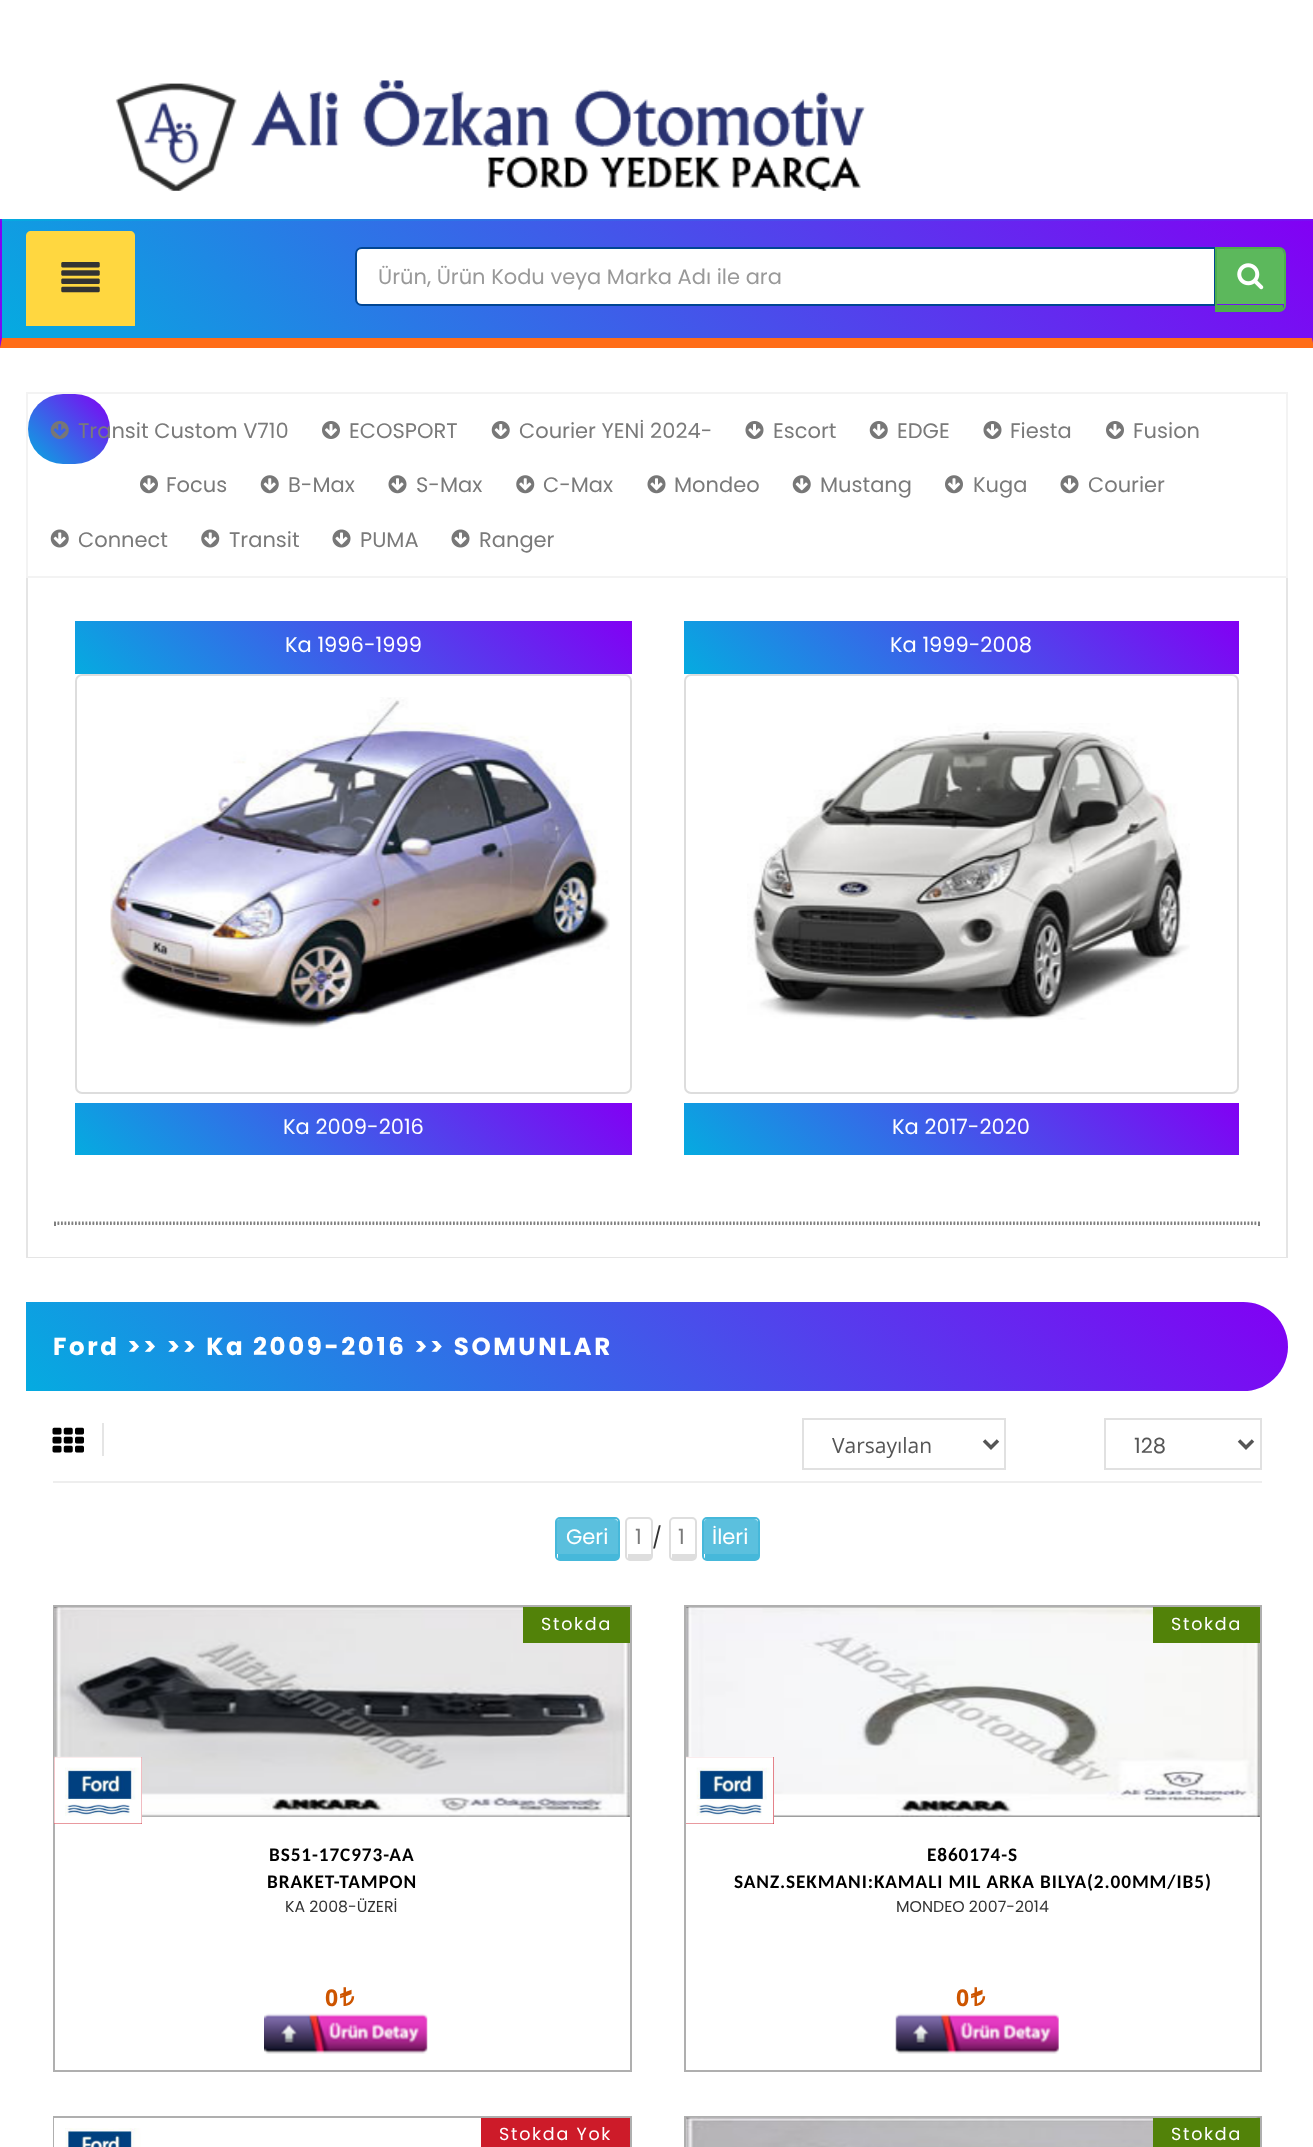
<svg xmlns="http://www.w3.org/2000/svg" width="1313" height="2147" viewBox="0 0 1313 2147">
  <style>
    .t1 { font: 21px Poppins; fill: #999; }
    .t2 { font: 21px Poppins; fill: #7a7a7a; }
    .t3 { font: 21px Poppins; fill: #fff; }
    .t4 { font: bold 24.5px Poppins; letter-spacing: 2.6px; fill: #fff; }
    .t5 { font: 21px Open Sans; fill: #555; }
    .t6 { font: 21px Poppins; fill: #555; }
    .t7 { font: 21px Poppins; fill: #333; }
    .t8 { font: 17.5px Poppins; letter-spacing: 1.75px; fill: #fff; }
    .t9 { font: bold 19.25px Carlito; letter-spacing: 0.9px; fill: #000; }
    .t10 { font: 15.75px Poppins; fill: #333; }
    .t11 { font: bold 23px Open Sans; fill: #cd5500; }
    .t12 { font: bold 23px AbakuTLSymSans; fill: #cd5500; }
  </style>
  <defs>
    <linearGradient id="g1" gradientUnits="userSpaceOnUse" x1="300" y1="636" x2="1014" y2="-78"><stop offset="0" stop-color="#05abe0"/><stop offset="1" stop-color="#8200f4"/></linearGradient>
    <linearGradient id="g2" gradientUnits="userSpaceOnUse" x1="-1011" y1="519" x2="-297" y2="-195"><stop offset="0" stop-color="#05abe0"/><stop offset="1" stop-color="#8200f4"/></linearGradient>
    <linearGradient id="g3" gradientUnits="userSpaceOnUse" x1="300" y1="519" x2="1014" y2="-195"><stop offset="0" stop-color="#05abe0"/><stop offset="1" stop-color="#8200f4"/></linearGradient>
    <linearGradient id="g4" gradientUnits="userSpaceOnUse" x1="-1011" y1="636" x2="-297" y2="-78"><stop offset="0" stop-color="#05abe0"/><stop offset="1" stop-color="#8200f4"/></linearGradient>
    <linearGradient id="g5" gradientUnits="userSpaceOnUse" x1="-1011" y1="753" x2="-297" y2="39"><stop offset="0" stop-color="#05abe0"/><stop offset="1" stop-color="#8200f4"/></linearGradient>
    <linearGradient id="g6" gradientUnits="userSpaceOnUse" x1="300" y1="753" x2="1014" y2="39"><stop offset="0" stop-color="#05abe0"/><stop offset="1" stop-color="#8200f4"/></linearGradient>
    <linearGradient id="g7" gradientUnits="userSpaceOnUse" x1="31" y1="467" x2="107" y2="391"><stop offset="0" stop-color="#05abe0"/><stop offset="1" stop-color="#8200f4"/></linearGradient>
    <linearGradient id="g8" gradientUnits="userSpaceOnUse" x1="201" y1="800" x2="506" y2="495"><stop offset="0" stop-color="#05abe0"/><stop offset="1" stop-color="#8200f4"/></linearGradient>
    <linearGradient id="g9" gradientUnits="userSpaceOnUse" x1="810" y1="799" x2="1113" y2="496"><stop offset="0" stop-color="#05abe0"/><stop offset="1" stop-color="#8200f4"/></linearGradient>
    <linearGradient id="g10" gradientUnits="userSpaceOnUse" x1="201" y1="1281" x2="506" y2="977"><stop offset="0" stop-color="#05abe0"/><stop offset="1" stop-color="#8200f4"/></linearGradient>
    <linearGradient id="g11" gradientUnits="userSpaceOnUse" x1="810" y1="1281" x2="1113" y2="977"><stop offset="0" stop-color="#05abe0"/><stop offset="1" stop-color="#8200f4"/></linearGradient>
    <linearGradient id="g12" gradientUnits="userSpaceOnUse" x1="319" y1="1684" x2="995" y2="1009"><stop offset="0" stop-color="#05abe0"/><stop offset="1" stop-color="#8200f4"/></linearGradient>
  </defs>
  <rect width="100%" height="100%" fill="#fff"/>
  <image x="115" y="80" width="751" height="111" href="images/1.png"/>
  <rect x="2" y="221" width="1311" height="117" fill="url(#g1)"/>
  <path d="M31 231H130C133 231 135 233 135 236V326H26V236C26 233 28 231 31 231Z" fill="#ffd740"/>
  <image x="61" y="262" width="39" height="31" href="images/2.png"/>
  <rect x="0" y="219" width="2" height="2" fill="url(#g2)"/>
  <rect x="2" y="219" width="1311" height="2" fill="url(#g3)"/>
  <rect x="0" y="221" width="2" height="117" fill="url(#g4)"/>
  <rect x="0" y="338" width="2" height="10" fill="url(#g5)"/>
  <rect x="1312" y="338" width="1" height="5" fill="url(#g6)"/>
  <path d="M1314 348H0L2 338H1312Z" fill="#ff6d18"/>
  <path d="M362 248H1215V305H362C358.5 305 356 302.5 356 299V254C356 250.5 358.5 248 362 248Z" fill="#fff" stroke="#014693" stroke-width="2"/>
  <text x="378" y="284" class="t1">Ürün, Ürün Kodu veya Marka Adı ile ara</text>
  <path d="M1216 248H1279C1282 248 1284 251 1284 254V304H1216Z" fill="#5cb85c"/>
  <path d="M1216 248H1279C1282.5 248 1285 250.5 1285 254V305C1285 308.5 1282.5 311 1279 311H1216Z" fill="none" stroke="#4cae4c" stroke-width="2"/>
  <rect x="1215" y="305" width="68" height="5" fill="#4cae4c"/>
  <image x="1237" y="263" width="27" height="27" href="images/3.png"/>
  <rect x="27" y="393" width="1260" height="184" fill="none" stroke="#f3f3f3" stroke-width="2"/>
  <rect x="28" y="394" width="82" height="70" rx="35" fill="url(#g7)"/>
  <image x="50" y="421" width="19" height="18" href="images/4.png"/>
  <text x="78" y="438" class="t2">Transit Custom V710</text>
  <image x="322" y="421" width="18" height="18" href="images/5.png"/>
  <text x="349" y="438" class="t2">ECOSPORT</text>
  <image x="491" y="421" width="19" height="18" href="images/6.png"/>
  <text x="519" y="438" class="t2">Courier YENİ 2024-</text>
  <image x="745" y="421" width="19" height="18" href="images/7.png"/>
  <text x="773" y="438" class="t2">Escort</text>
  <image x="869" y="421" width="19" height="18" href="images/6.png"/>
  <text x="897" y="438" class="t2">EDGE</text>
  <image x="983" y="421" width="19" height="18" href="images/7.png"/>
  <text x="1010" y="438" class="t2">Fiesta</text>
  <image x="1106" y="421" width="18" height="18" href="images/5.png"/>
  <text x="1133" y="438" class="t2">Fusion</text>
  <image x="140" y="475" width="18" height="19" href="images/8.png"/>
  <text x="166" y="492" class="t2">Focus</text>
  <image x="260" y="475" width="19" height="19" href="images/9.png"/>
  <text x="288" y="492" class="t2">B-Max</text>
  <image x="388" y="475" width="19" height="19" href="images/10.png"/>
  <text x="416" y="492" class="t2">S-Max</text>
  <image x="516" y="475" width="19" height="19" href="images/11.png"/>
  <text x="543" y="492" class="t2">C-Max</text>
  <image x="647" y="475" width="19" height="19" href="images/10.png"/>
  <text x="674" y="492" class="t2">Mondeo</text>
  <image x="792" y="475" width="19" height="19" href="images/9.png"/>
  <text x="820" y="492" class="t2">Mustang</text>
  <image x="945" y="475" width="18" height="19" href="images/8.png"/>
  <text x="973" y="492" class="t2">Kuga</text>
  <image x="1060" y="475" width="19" height="19" href="images/10.png"/>
  <text x="1088" y="492" class="t2">Courier</text>
  <image x="50" y="529" width="19" height="19" href="images/12.png"/>
  <text x="78" y="547" class="t2">Connect</text>
  <image x="201" y="529" width="19" height="19" href="images/13.png"/>
  <text x="229" y="547" class="t2">Transit</text>
  <image x="332" y="529" width="19" height="19" href="images/14.png"/>
  <text x="360" y="547" class="t2">PUMA</text>
  <image x="451" y="529" width="19" height="19" href="images/14.png"/>
  <text x="479" y="547" class="t2">Ranger</text>
  <rect x="1286" y="578" width="2" height="680" fill="#e5e5e5"/>
  <rect x="26" y="1257" width="1262" height="1" fill="#e5e5e5"/>
  <rect x="26" y="578" width="2" height="680" fill="#e5e5e5"/>
  <rect x="75" y="621" width="557" height="53" fill="url(#g8)"/>
  <text x="285" y="652" class="t3">Ka 1996-1999</text>
  <rect x="76" y="675" width="555" height="418" rx="6" fill="none" stroke="#ddd" stroke-width="2"/>
  <image x="110" y="697" width="500" height="332" href="images/15.png"/>
  <rect x="684" y="621" width="555" height="53" fill="url(#g9)"/>
  <text x="890" y="652" class="t3">Ka 1999-2008</text>
  <rect x="685" y="675" width="553" height="418" rx="6" fill="none" stroke="#ddd" stroke-width="2"/>
  <image x="747" y="723" width="443" height="299" href="images/16.png"/>
  <rect x="75" y="1103" width="557" height="52" fill="url(#g10)"/>
  <text x="283" y="1134" class="t3">Ka 2009-2016</text>
  <rect x="684" y="1103" width="555" height="52" fill="url(#g11)"/>
  <text x="892" y="1134" class="t3">Ka 2017-2020</text>
  <path d="M54 1222.5H1260" fill="none" stroke="#808080" stroke-width="1.8" stroke-dasharray="1.75 1.75"/>
  <rect x="1258" y="1222" width="2" height="4" fill="#808080"/>
  <path d="M54 1224H1260" fill="none" stroke="#808080" stroke-width="1.8" stroke-dasharray="1.75 1.75"/>
  <rect x="54" y="1222" width="2" height="4" fill="#808080"/>
  <path d="M26 1302H1243.5C1268 1302 1288 1322 1288 1346.5C1288 1371 1268 1391 1243.5 1391H26Z" fill="url(#g12)"/>
  <text x="53" y="1355" class="t4">Ford &gt;&gt; &gt;&gt; Ka 2009-2016 &gt;&gt; SOMUNLAR</text>
  <rect x="102" y="1423" width="2" height="33" fill="#e5e5e5"/>
  <image x="52" y="1427" width="32" height="26" href="images/17.png"/>
  <rect x="803" y="1419" width="202" height="50" fill="none" stroke="#e1e1e1" stroke-width="2"/>
  <path d="M984 1440.5L991 1447.5L998 1440.5" fill="none" stroke="#555" stroke-width="3.5"/>
  <text x="832" y="1453" class="t5">Varsayılan</text>
  <rect x="1105" y="1419" width="156" height="50" fill="none" stroke="#e1e1e1" stroke-width="2"/>
  <path d="M1239 1440.5L1246 1447.5L1253 1440.5" fill="none" stroke="#555" stroke-width="3.5"/>
  <text x="1134" y="1453" class="t6">128</text>
  <rect x="53" y="1481" width="1209" height="2" fill="#eee"/>
  <path d="M560 1519H614C616 1519 618 1521 618 1522V1554H556V1522C556 1521 558 1519 560 1519Z" fill="#5bc0de"/>
  <rect x="556" y="1518" width="63" height="42" rx="4" fill="none" stroke="#46b8da" stroke-width="2"/>
  <rect x="558" y="1554" width="60" height="5" fill="#46b8da"/>
  <text x="566" y="1544" class="t3">Geri</text>
  <rect x="626" y="1518" width="26" height="42" rx="4" fill="none" stroke="#dedede" stroke-width="2"/>
  <rect x="628" y="1554" width="23" height="5" fill="#dedede"/>
  <text x="635" y="1544" class="t2">1</text>
  <text x="652" y="1545" class="t7">/</text>
  <rect x="670" y="1518" width="26" height="42" rx="4" fill="none" stroke="#dedede" stroke-width="2"/>
  <rect x="672" y="1554" width="23" height="5" fill="#dedede"/>
  <text x="678" y="1544" class="t2">1</text>
  <path d="M707 1519H754C756 1519 758 1521 758 1522V1554H704V1522C704 1521 705 1519 707 1519Z" fill="#5bc0de"/>
  <rect x="703" y="1518" width="56" height="42" rx="4" fill="none" stroke="#46b8da" stroke-width="2"/>
  <rect x="705" y="1554" width="53" height="5" fill="#46b8da"/>
  <text x="712" y="1544" class="t3">İleri</text>
  <rect x="54" y="1606" width="577" height="465" fill="none" stroke="#afafaf" stroke-width="2"/>
  <image x="54" y="1607" width="576" height="210" href="images/18.png"/>
  <rect x="523" y="1607" width="107" height="36" fill="#528209"/>
  <text x="541" y="1630" class="t8">Stokda</text>
  <rect x="54" y="1757" width="88" height="67" fill="#cd1b29"/>
  <image x="54" y="1756" width="88" height="68" href="images/19.png"/>
  <text x="269" y="1861" class="t9">BS51-17C973-AA</text>
  <text x="267" y="1888" class="t9">BRAKET-TAMPON</text>
  <text x="285" y="1912" class="t10">KA 2008-ÜZERİ</text>
  <text x="325" y="2006" class="t11">0</text>
  <text x="338" y="2006" class="t12">¨</text>
  <image x="264" y="2013" width="164" height="41" href="images/20.png"/>
  <rect x="685" y="1606" width="576" height="465" fill="none" stroke="#afafaf" stroke-width="2"/>
  <image x="686" y="1607" width="574" height="210" href="images/21.png"/>
  <rect x="1153" y="1607" width="107" height="36" fill="#528209"/>
  <text x="1171" y="1630" class="t8">Stokda</text>
  <rect x="686" y="1757" width="88" height="67" fill="#cd1b29"/>
  <image x="686" y="1756" width="88" height="68" href="images/22.png"/>
  <text x="927" y="1861" class="t9">E860174-S</text>
  <text x="734" y="1888" class="t9">SANZ.SEKMANI:KAMALI MIL ARKA BILYA(2.00MM/IB5)</text>
  <text x="896" y="1912" class="t10">MONDEO 2007-2014</text>
  <text x="956" y="2006" class="t11">0</text>
  <text x="969" y="2006" class="t12">¨</text>
  <image x="895" y="2013" width="164" height="41" href="images/23.png"/>
  <rect x="54" y="2117" width="577" height="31" fill="none" stroke="#afafaf" stroke-width="2"/>
  <image x="54" y="2118" width="88" height="29" href="images/24.png"/>
  <rect x="481" y="2118" width="149" height="29" fill="#cd1b29"/>
  <text x="499" y="2140" class="t8">Stokda Yok</text>
  <rect x="685" y="2117" width="576" height="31" fill="none" stroke="#afafaf" stroke-width="2"/>
  <image x="686" y="2117" width="574" height="30" href="images/25.png"/>
  <rect x="1153" y="2118" width="107" height="29" fill="#528209"/>
  <text x="1171" y="2140" class="t8">Stokda</text>
</svg>
